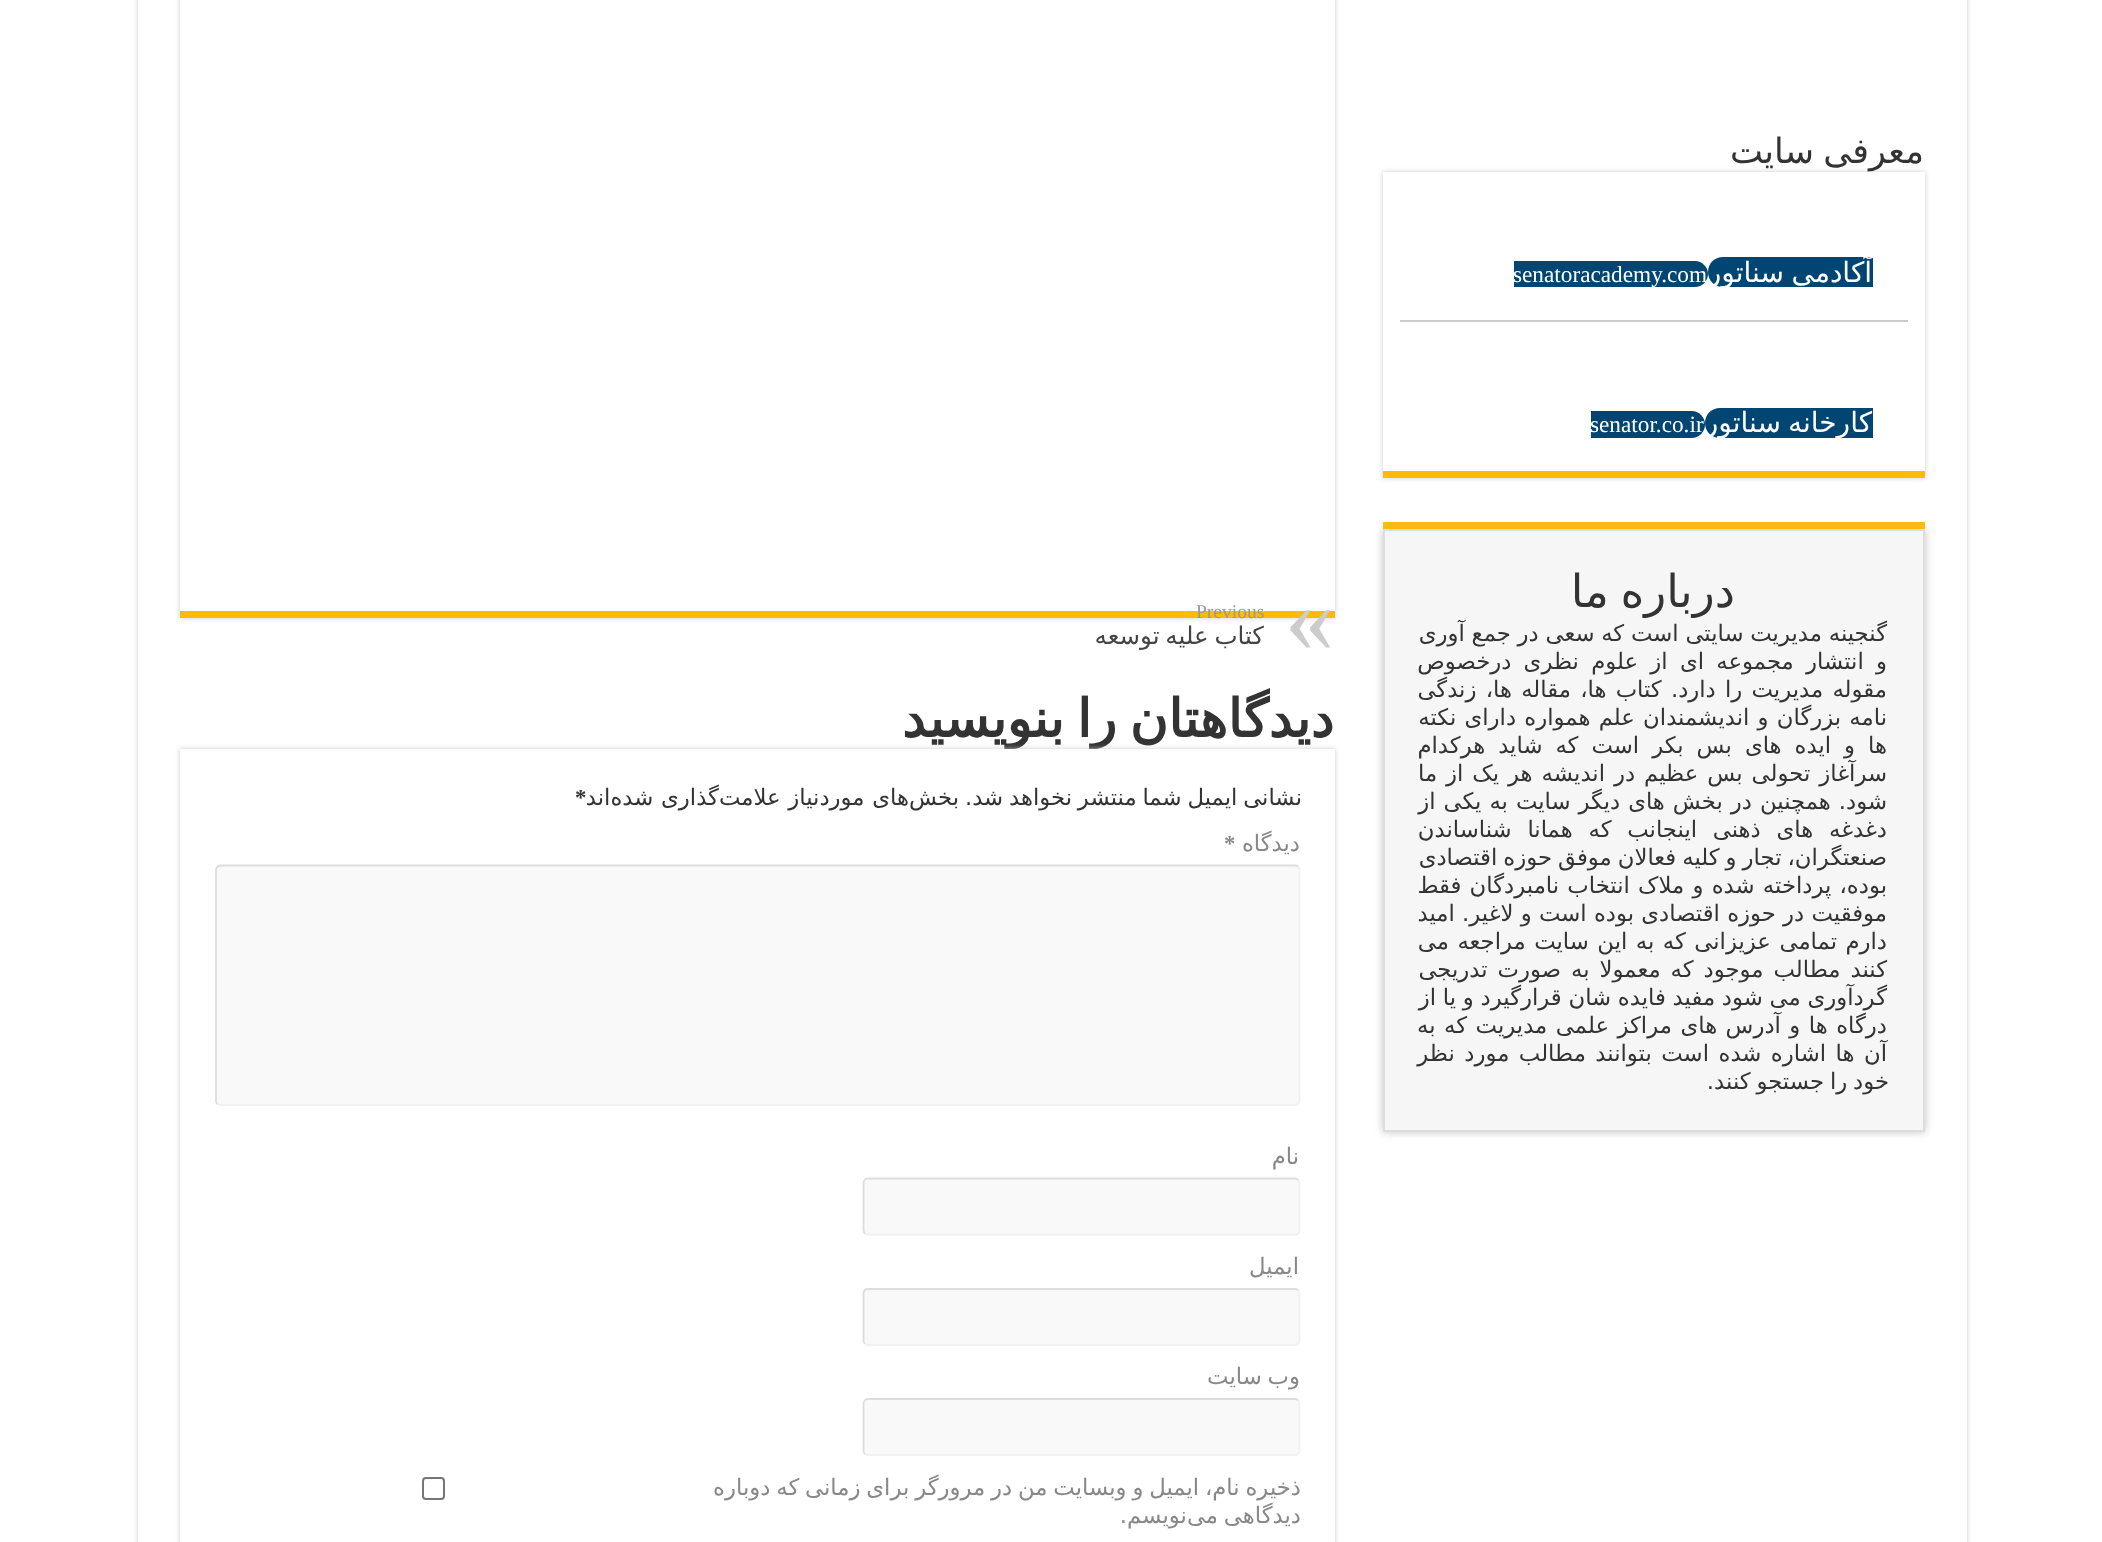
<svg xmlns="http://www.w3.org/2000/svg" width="2102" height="1542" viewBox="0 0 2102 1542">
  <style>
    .t1 { font: 35px DejaVu Sans; direction: rtl; fill: #333; }
    .t2 { font: 28px DejaVu Sans; direction: rtl; fill: #fff; }
    .t3 { font: 23.25px Liberation Serif; fill: #fff; }
    .t4 { font: 45.5px DejaVu Sans; direction: rtl; fill: #333; }
    .t5 { font: 22.75px DejaVu Sans; direction: rtl; fill: #333; }
    .t6 { font: 98px Liberation Serif; fill: #ccc; }
    .t7 { font: 19.5px Liberation Serif; fill: #999; }
    .t8 { font: 24.5px DejaVu Sans; direction: rtl; fill: #444; }
    .t9 { font: bold 52.5px DejaVu Sans; direction: rtl; fill: #333; }
    .t10 { font: bold 22.75px Liberation Serif; fill: #333; }
    .t11 { font: 22.75px DejaVu Sans; direction: rtl; fill: #888; }
    .t12 { font: bold 22.75px Liberation Serif; fill: #888; }
  </style>
  <rect width="100%" height="100%" fill="#fff"/>
  <rect x="138" y="-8" width="1829" height="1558" fill="#cacaca" filter="blur(2.5px)"/>
  <rect x="138" y="0" width="1829" height="1542" fill="#fff"/>
  <rect x="1383" y="172" width="542" height="306" fill="#cacaca" filter="blur(2.5px)"/>
  <text x="1924" y="163" word-spacing="-2" class="t1">معرفی سایت</text>
  <rect x="1383" y="172" width="542" height="299" fill="#fff"/>
  <rect x="1383" y="471" width="542" height="7" fill="#ffbb01"/>
  <path d="M1723 257H1873V287H1723C1714.5 287 1708 280.5 1708 272C1708 263.5 1714.5 257 1723 257Z" fill="#014673"/>
  <text x="1872" y="282" class="t2">آکادمی</text>
  <path d="M1514 261H1695C1702 261 1708 267 1708 274C1708 281 1702 287 1695 287H1514Z" fill="#014673"/>
  <text x="1784" y="282" class="t2">سناتور</text>
  <text x="1513" y="282" class="t3">senatoracademy.com</text>
  <rect x="1400" y="320" width="508" height="2" fill="#ccc"/>
  <path d="M1720 408H1873V438H1720C1711.5 438 1705 431.5 1705 423C1705 414.5 1711.5 408 1720 408Z" fill="#014673"/>
  <text x="1872" y="432" class="t2">کارخانه</text>
  <path d="M1591 411H1691.5C1699 411 1705 417 1705 424.5C1705 432 1699 438 1691.5 438H1591Z" fill="#014673"/>
  <text x="1781" y="432" class="t2">سناتور</text>
  <text x="1590" y="432" class="t3">senator.co.ir</text>
  <rect x="1383" y="529" width="542" height="603" fill="#99999999" filter="blur(4.5px)"/>
  <rect x="1383" y="522" width="542" height="7" fill="#ffb914"/>
  <rect x="1384" y="530" width="540" height="601" fill="#f6f6f6" stroke="#ddd" stroke-width="2"/>
  <text x="1735" y="607" word-spacing="-3" class="t4">درباره ما</text>
  <text x="1887" y="641" word-spacing="-0.5" class="t5">گنجینه مدیریت سایتی است که سعی در جمع آوری</text>
  <text x="1887" y="669" word-spacing="5" class="t5">و انتشار مجموعه ای از علوم نظری درخصوص</text>
  <text x="1887" y="697" word-spacing="2" class="t5">مقوله مدیریت را دارد. کتاب ها، مقاله ها، زندگی</text>
  <text x="1887" y="725" word-spacing="1" class="t5">نامه بزرگان و اندیشمندان علم همواره دارای نکته</text>
  <text x="1887" y="753" word-spacing="5.75" class="t5">ها و ایده های بس بکر است که شاید هرکدام</text>
  <text x="1887" y="781" word-spacing="1.75" class="t5">سرآغاز تحولی بس عظیم در اندیشه هر یک از ما</text>
  <text x="1887" y="809" word-spacing="0.75" class="t5">شود. همچنین در بخش های دیگر سایت به یکی از</text>
  <text x="1887" y="837" word-spacing="8.5" class="t5">دغدغه های ذهنی اینجانب که همانا شناساندن</text>
  <text x="1887" y="865" word-spacing="-1.25" class="t5">صنعتگران، تجار و کلیه فعالان موفق حوزه اقتصادی</text>
  <text x="1887" y="893" word-spacing="1" class="t5">بوده، پرداخته شده و ملاک انتخاب نامبردگان فقط</text>
  <text x="1887" y="921" class="t5">موفقیت در حوزه اقتصادی بوده است و لاغیر. امید</text>
  <text x="1887" y="949" word-spacing="1.25" class="t5">دارم تمامی عزیزانی که به این سایت مراجعه می</text>
  <text x="1887" y="977" word-spacing="2.75" class="t5">کنند مطالب موجود که معمولا به صورت تدریجی</text>
  <text x="1887" y="1005" word-spacing="-0.5" class="t5">گردآوری می شود مفید فایده شان قرارگیرد و یا از</text>
  <text x="1887" y="1033" word-spacing="1.25" class="t5">درگاه ها و آدرس های مراکز علمی مدیریت که به</text>
  <text x="1887" y="1061" word-spacing="2.25" class="t5">آن ها اشاره شده است بتوانند مطالب مورد نظر</text>
  <text x="1889" y="1089" word-spacing="-1.4" class="t5">خود را جستجو کنند.</text>
  <rect x="180" y="-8" width="1155" height="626" fill="#cacaca" filter="blur(2.5px)"/>
  <rect x="180" y="0" width="1155" height="611" fill="#fff"/>
  <rect x="180" y="611" width="1155" height="7" fill="#ffbb01"/>
  <text x="1285" y="651" class="t6">«</text>
  <text x="1196" y="618" class="t7">Previous</text>
  <text x="1264" y="644" word-spacing="-2" class="t8">کتاب علیه توسعه</text>
  <text x="1334" y="737" word-spacing="-4" class="t9">دیدگاهتان را بنویسید</text>
  <rect x="180" y="749" width="1155" height="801" fill="#cacaca" filter="blur(2.5px)"/>
  <rect x="180" y="749" width="1155" height="793" fill="#fff"/>
  <text x="1302" y="805" word-spacing="-1.4" class="t5">نشانی ایمیل شما منتشر نخواهد شد.</text>
  <text x="959" y="805" word-spacing="0.5" class="t5">بخش‌های موردنیاز علامت‌گذاری شده‌اند</text>
  <text x="575" y="805" class="t10">*</text>
  <text x="1300" y="851" class="t11">دیدگاه</text>
  <text x="1224" y="851" class="t12">*</text>
  <rect x="215" y="865" width="1085" height="241" rx="5" fill="#f9f9f9"/>
  <path d="M1298 866.5C1299 867.5 1299.5 868.5 1299.5 870V1101C1299.5 1102 1299 1103 1298 1104C1297.5 1104.5 1296 1105 1295 1105H220.5C219.5 1105 218 1104.5 217.5 1104" fill="none" stroke="#f1f1f1" stroke-width="1.8"/>
  <path d="M217.5 1104C216.5 1103 216 1102 216 1101V870C216 868.5 216.5 867.5 217.5 866.5C218 866 219.5 865.5 220.5 865.5H1295C1296 865.5 1297.5 866 1298 866.5" fill="none" stroke="#ddd" stroke-width="1.8"/>
  <text x="1299" y="1164" class="t11">نام</text>
  <rect x="863" y="1178" width="437" height="58" rx="5" fill="#f9f9f9"/>
  <path d="M1298 1180C1299 1180.5 1299.5 1182 1299.5 1183V1230C1299.5 1231.5 1299 1232.5 1298 1233.5C1297.5 1234 1296 1234.5 1295 1234.5H868C867 1234.5 865.5 1234 865 1233.5" fill="none" stroke="#f1f1f1" stroke-width="1.8"/>
  <path d="M865 1233.5C864 1232.5 863.5 1231.5 863.5 1230V1183C863.5 1182 864 1180.5 865 1180C865.5 1179 867 1178.5 868 1178.5H1295C1296 1178.5 1297.5 1179 1298 1180" fill="none" stroke="#ddd" stroke-width="1.8"/>
  <text x="1299" y="1274" class="t11">ایمیل</text>
  <rect x="863" y="1288" width="437" height="58" rx="5" fill="#f9f9f9"/>
  <path d="M1298 1290C1299 1291 1299.5 1292 1299.5 1293V1340.5C1299.5 1341.5 1299 1343 1298 1343.5C1297.5 1344.5 1296 1345 1295 1345H868C867 1345 865.5 1344.5 865 1343.5" fill="none" stroke="#f1f1f1" stroke-width="1.8"/>
  <path d="M865 1343.5C864 1343 863.5 1341.5 863.5 1340.5V1293C863.5 1292 864 1291 865 1290C865.5 1289.5 867 1289 868 1289H1295C1296 1289 1297.5 1289.5 1298 1290" fill="none" stroke="#ddd" stroke-width="1.8"/>
  <text x="1300" y="1384" word-spacing="-1.4" class="t11">وب‌ سایت</text>
  <rect x="863" y="1398" width="437" height="58" rx="5" fill="#f9f9f9"/>
  <path d="M1298 1400.5C1299 1401 1299.5 1402.5 1299.5 1403.5V1451C1299.5 1452 1299 1453 1298 1454C1297.5 1454.5 1296 1455 1295 1455H868C867 1455 865.5 1454.5 865 1454" fill="none" stroke="#f1f1f1" stroke-width="1.8"/>
  <path d="M865 1454C864 1453 863.5 1452 863.5 1451V1403.5C863.5 1402.5 864 1401 865 1400.5C865.5 1399.5 867 1399 868 1399H1295C1296 1399 1297.5 1399.5 1298 1400.5" fill="none" stroke="#ddd" stroke-width="1.8"/>
  <text x="1301" y="1495" word-spacing="-1.4" class="t11">ذخیره نام، ایمیل و وبسایت من در مرورگر برای زمانی که دوباره</text>
  <text x="1301" y="1523" word-spacing="-1.4" class="t11">دیدگاهی می‌نویسم.</text>
  <rect x="423" y="1478" width="21" height="21" rx="3" fill="none" stroke="#767676" stroke-width="2"/>
</svg>
